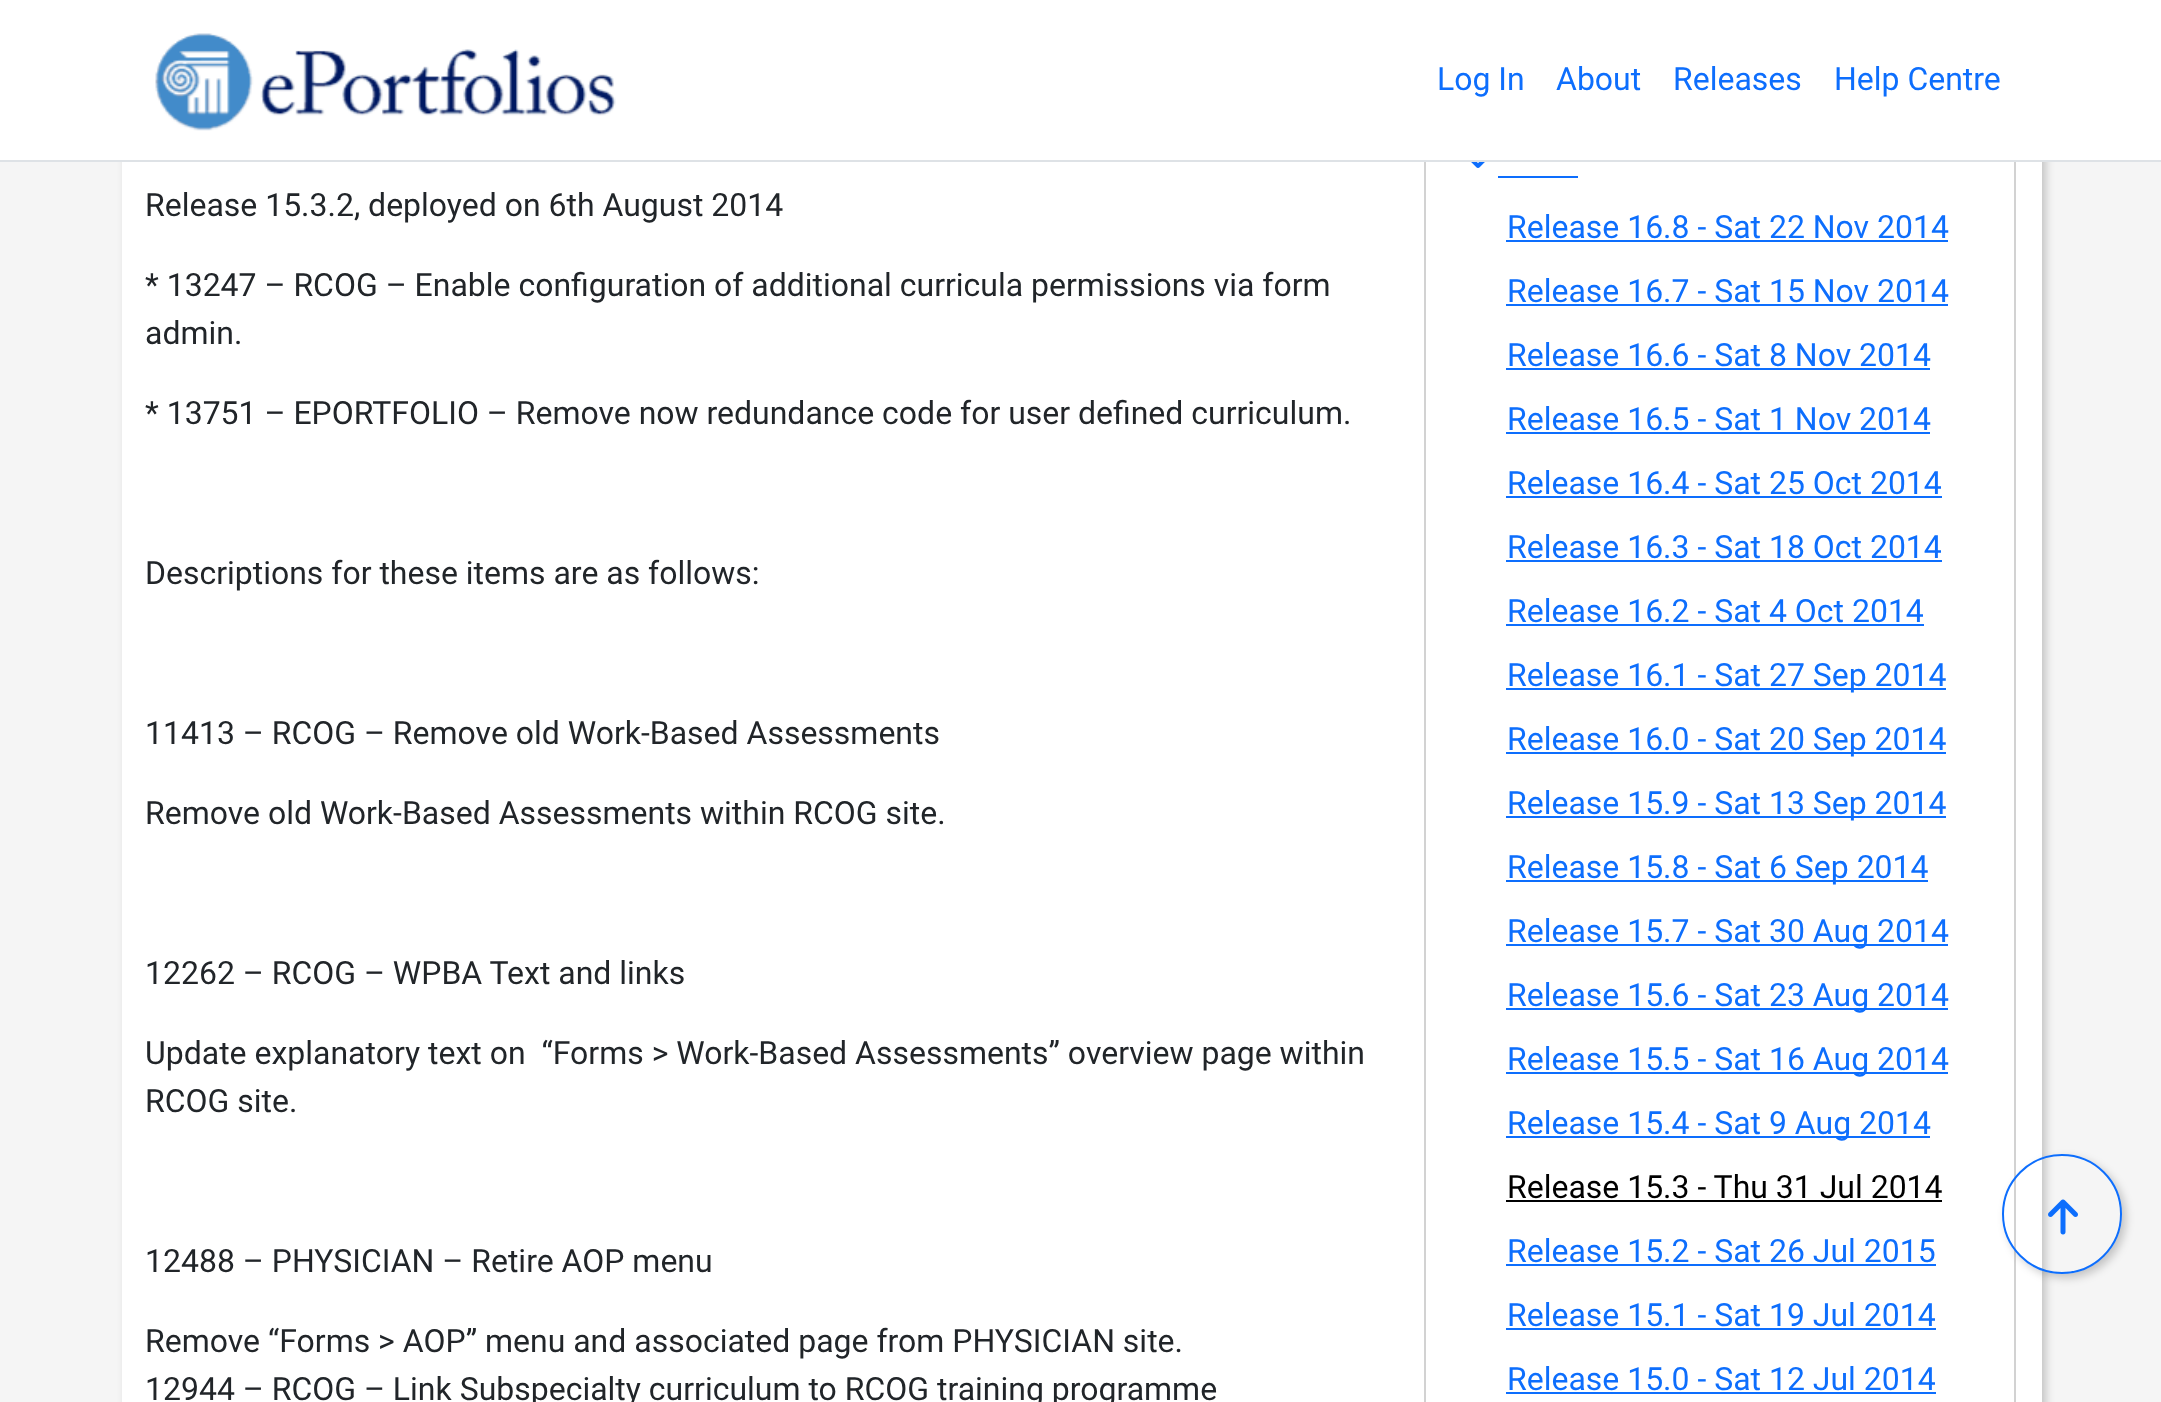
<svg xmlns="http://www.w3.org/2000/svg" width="2161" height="1402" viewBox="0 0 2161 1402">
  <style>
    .t1 { font: 32px Roboto; fill: #0d6efd; }
    .t2 { font: 32px Roboto; fill: #212529; }
    .t3 { font: 32px Roboto; fill: #000; }
  </style>
  <defs>
    <clipPath id="clip1"><path d="M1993 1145H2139V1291H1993ZM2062 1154C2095 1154 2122 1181 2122 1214C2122 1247 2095 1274 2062 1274C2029 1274 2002 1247 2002 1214C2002 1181 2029 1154 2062 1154Z" clip-rule="evenodd"/></clipPath>
  </defs>
  <rect width="100%" height="100%" fill="#f5f5f5"/>
  <rect x="126" y="-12" width="1920" height="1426" fill="#00000033" filter="blur(4px)"/>
  <rect x="122" y="162" width="1920" height="1240" fill="#fff"/>
  <rect x="1425" y="-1" width="590" height="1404" fill="none" stroke="#d2d2d2" stroke-width="2"/>
  <rect x="0" y="0" width="2161" height="160" fill="#fff"/>
  <rect x="0" y="160" width="2161" height="2" fill="#dee2e6"/>
  <image x="155" y="33" width="461" height="98" href="images/1.png"/>
  <text x="1437" y="90" class="t1">Log In</text>
  <text x="1556" y="90" class="t1">About</text>
  <text x="1673" y="90" class="t1">Releases</text>
  <text x="1834" y="90" class="t1">Help Centre</text>
  <text x="145" y="216" class="t2">Release 15.3.2, deployed on 6th August 2014</text>
  <text x="145" y="296" class="t2">* 13247 – RCOG – Enable configuration of additional curricula permissions via form</text>
  <text x="145" y="344" class="t2">admin.</text>
  <text x="145" y="424" class="t2">* 13751 – EPORTFOLIO – Remove now redundance code for user defined curriculum.</text>
  <text x="145" y="584" class="t2">Descriptions for these items are as follows:</text>
  <text x="145" y="744" class="t2">11413 – RCOG – Remove old Work-Based Assessments</text>
  <text x="145" y="824" class="t2">Remove old Work-Based Assessments within RCOG site.</text>
  <text x="145" y="984" class="t2">12262 – RCOG – WPBA Text and links</text>
  <text x="145" y="1064" class="t2" xml:space="preserve">Update explanatory text on  “Forms &gt; Work-Based Assessments” overview page within</text>
  <text x="145" y="1112" class="t2">RCOG site.</text>
  <text x="145" y="1272" class="t2">12488 – PHYSICIAN – Retire AOP menu</text>
  <text x="145" y="1352" class="t2">Remove “Forms &gt; AOP” menu and associated page from PHYSICIAN site.</text>
  <text x="145" y="1400" class="t2">12944 – RCOG – Link Subspecialty curriculum to RCOG training programme</text>
  <image x="1471" y="162" width="14" height="6" href="images/2.png"/>
  <rect x="1498" y="176" width="80" height="2" fill="#0d6efd"/>
  <text x="1507" y="238" class="t1">Release 16.8 - Sat 22 Nov 2014</text>
  <rect x="1506" y="240" width="442" height="2" fill="#0d6efd"/>
  <text x="1507" y="302" class="t1">Release 16.7 - Sat 15 Nov 2014</text>
  <rect x="1506" y="304" width="442" height="2" fill="#0d6efd"/>
  <text x="1507" y="366" class="t1">Release 16.6 - Sat 8 Nov 2014</text>
  <rect x="1506" y="368" width="424" height="2" fill="#0d6efd"/>
  <text x="1507" y="430" class="t1">Release 16.5 - Sat 1 Nov 2014</text>
  <rect x="1506" y="432" width="424" height="2" fill="#0d6efd"/>
  <text x="1507" y="494" class="t1">Release 16.4 - Sat 25 Oct 2014</text>
  <rect x="1506" y="496" width="436" height="2" fill="#0d6efd"/>
  <text x="1507" y="558" class="t1">Release 16.3 - Sat 18 Oct 2014</text>
  <rect x="1506" y="560" width="436" height="2" fill="#0d6efd"/>
  <text x="1507" y="622" class="t1">Release 16.2 - Sat 4 Oct 2014</text>
  <rect x="1506" y="624" width="418" height="2" fill="#0d6efd"/>
  <rect x="1506" y="688" width="440" height="2" fill="#0d6efd"/>
  <text x="1507" y="686" class="t1">Release 16.1 - Sat 27 Sep 2014</text>
  <rect x="1506" y="752" width="440" height="2" fill="#0d6efd"/>
  <text x="1507" y="750" class="t1">Release 16.0 - Sat 20 Sep 2014</text>
  <rect x="1506" y="816" width="440" height="2" fill="#0d6efd"/>
  <text x="1507" y="814" class="t1">Release 15.9 - Sat 13 Sep 2014</text>
  <rect x="1506" y="880" width="422" height="2" fill="#0d6efd"/>
  <text x="1507" y="878" class="t1">Release 15.8 - Sat 6 Sep 2014</text>
  <rect x="1506" y="944" width="442" height="2" fill="#0d6efd"/>
  <text x="1507" y="942" class="t1">Release 15.7 - Sat 30 Aug 2014</text>
  <rect x="1506" y="1008" width="442" height="2" fill="#0d6efd"/>
  <text x="1507" y="1006" class="t1">Release 15.6 - Sat 23 Aug 2014</text>
  <rect x="1506" y="1072" width="442" height="2" fill="#0d6efd"/>
  <text x="1507" y="1070" class="t1">Release 15.5 - Sat 16 Aug 2014</text>
  <rect x="1506" y="1136" width="424" height="2" fill="#0d6efd"/>
  <text x="1507" y="1134" class="t1">Release 15.4 - Sat 9 Aug 2014</text>
  <text x="1507" y="1198" class="t3">Release 15.3 - Thu 31 Jul 2014</text>
  <rect x="1506" y="1200" width="436" height="2" fill="#000"/>
  <text x="1507" y="1262" class="t1">Release 15.2 - Sat 26 Jul 2015</text>
  <rect x="1506" y="1264" width="430" height="2" fill="#0d6efd"/>
  <text x="1507" y="1326" class="t1">Release 15.1 - Sat 19 Jul 2014</text>
  <rect x="1506" y="1328" width="430" height="2" fill="#0d6efd"/>
  <text x="1507" y="1390" class="t1">Release 15.0 - Sat 12 Jul 2014</text>
  <rect x="1506" y="1392" width="430" height="2" fill="#0d6efd"/>
  <g clip-path="url(#clip1)">
    <rect x="2006" y="1158" width="120" height="120" rx="60" fill="#00000033" filter="blur(4px)"/>
  </g>
  <circle cx="2062" cy="1214" r="59" fill="none" stroke="#0d6efd" stroke-width="2"/>
  <image x="2048" y="1199" width="30" height="36" href="images/3.png"/>
</svg>
